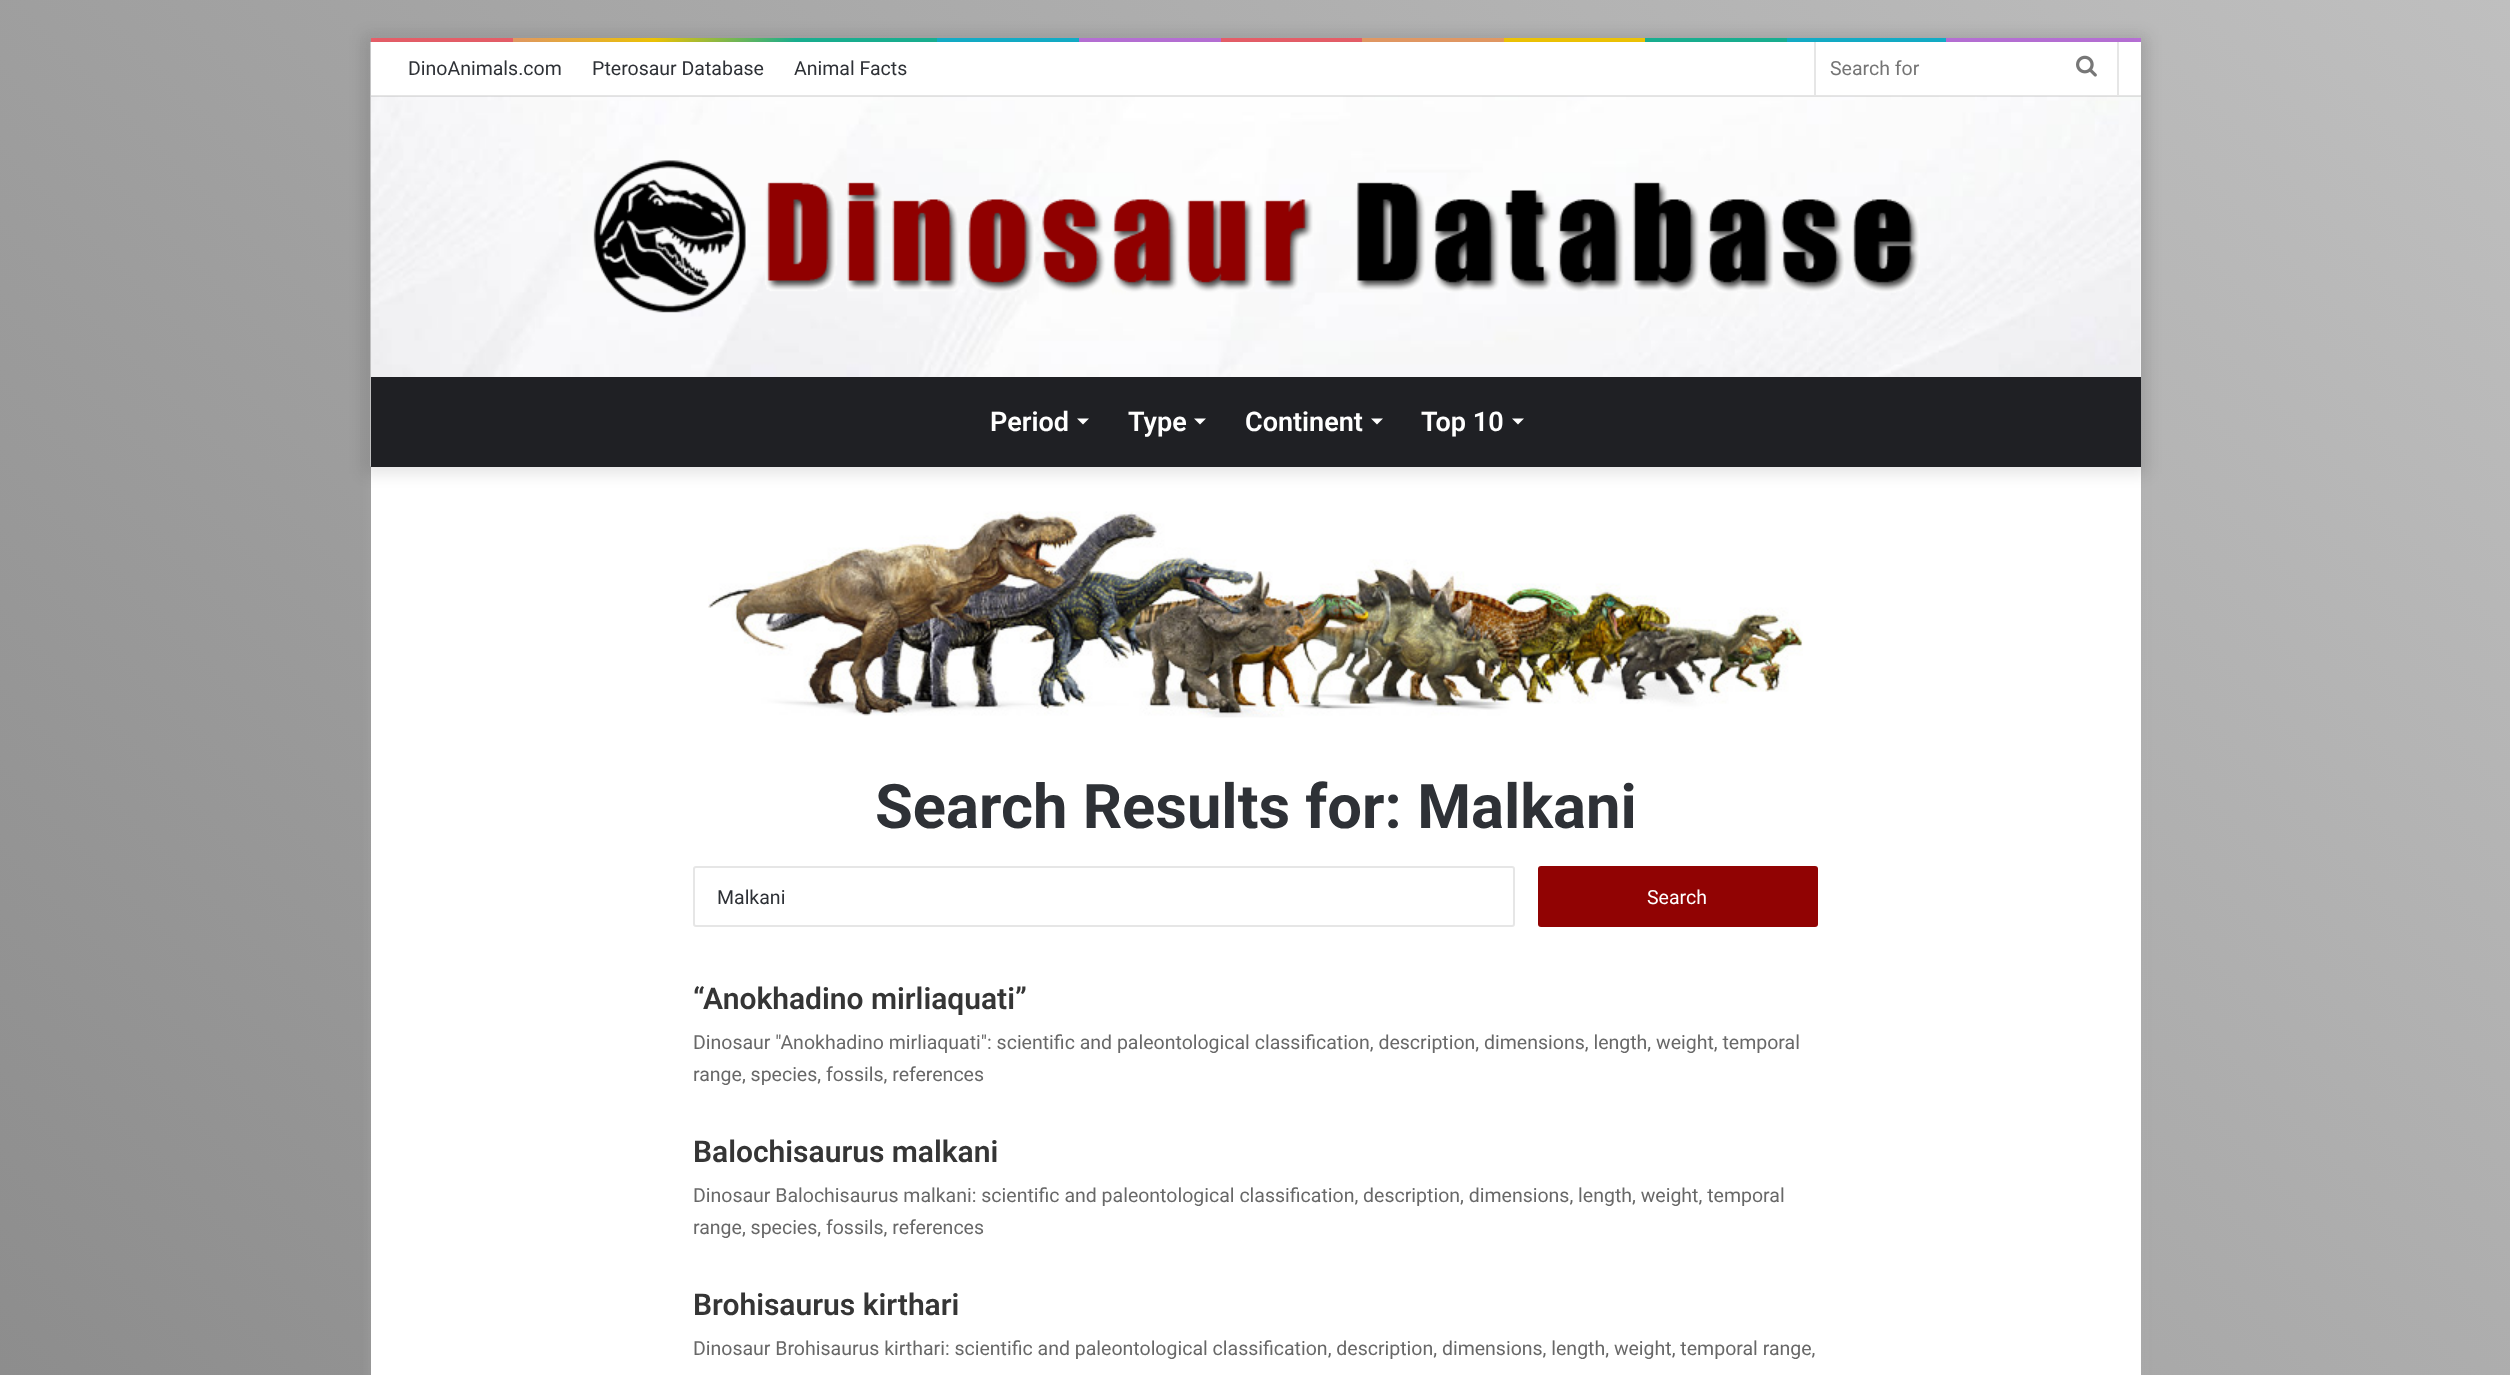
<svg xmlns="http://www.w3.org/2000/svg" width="2510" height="1375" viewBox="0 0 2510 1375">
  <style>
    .t1 { font: 19.5px Roboto; fill: #2e3136; }
    .t2 { font: 19.5px Roboto; fill: #757575; }
    .t3 { font: 600 27px Roboto; fill: #fff; }
    .t4 { font: bold 61.5px Roboto; fill: #2e3136; }
    .t5 { font: 19.5px Roboto; fill: #fff; }
    .t6 { font: 600 30px Roboto; fill: #353535; }
    .t7 { font: 19.5px Roboto; fill: #686868; }
  </style>
  <defs>
    <linearGradient id="g1" gradientUnits="userSpaceOnUse" x1="-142" y1="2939" x2="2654" y2="143"><stop offset="0" stop-color="#777"/><stop offset="1" stop-color="#bfbfbf"/></linearGradient>
    <linearGradient id="g2" gradientUnits="userSpaceOnUse" x1="371" y1="40" x2="2141" y2="40"><stop offset="0" stop-color="#f76570"/><stop offset="0.08" stop-color="#f76570"/><stop offset="0.08" stop-color="#f3a46b"/><stop offset="0.16" stop-color="#ffd205"/><stop offset="0.24" stop-color="#1bbc9b"/><stop offset="0.32" stop-color="#1bbc9b"/><stop offset="0.32" stop-color="#14b9d5"/><stop offset="0.4" stop-color="#14b9d5"/><stop offset="0.4" stop-color="#c377e4"/><stop offset="0.48" stop-color="#c377e4"/><stop offset="0.48" stop-color="#f76570"/><stop offset="0.56" stop-color="#f76570"/><stop offset="0.56" stop-color="#f3a46b"/><stop offset="0.64" stop-color="#f3a46b"/><stop offset="0.64" stop-color="#ffd205"/><stop offset="0.72" stop-color="#ffd205"/><stop offset="0.72" stop-color="#1bbc9b"/><stop offset="0.8" stop-color="#1bbc9b"/><stop offset="0.8" stop-color="#14b9d5"/><stop offset="0.89" stop-color="#14b9d5"/><stop offset="0.89" stop-color="#c377e4"/><stop offset="1" stop-color="#c377e4"/></linearGradient>
  </defs>
  <rect width="100%" height="100%" fill="#fff"/>
  <rect x="0" y="0" width="2510" height="1375" fill="url(#g1)"/>
  <rect x="371" y="39" width="1770" height="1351" fill="#ababab80" filter="blur(5px)"/>
  <rect x="371" y="467" width="1770" height="908" fill="#fff"/>
  <rect x="371" y="38" width="1770" height="4" fill="url(#g2)"/>
  <rect x="363" y="35" width="1785" height="439" fill="#0000001a" filter="blur(7.5px)"/>
  <rect x="2140" y="96" width="1" height="281" fill="#fff"/>
  <image x="370" y="42" width="1771" height="425" href="images/1.png"/>
  <rect x="371" y="42" width="1770" height="54" fill="#fff"/>
  <rect x="371" y="95" width="1770" height="2" fill="#0000001a"/>
  <text x="408" y="75" class="t1">DinoAnimals.com</text>
  <text x="592" y="75" class="t1">Pterosaur Database</text>
  <text x="794" y="75" class="t1">Animal Facts</text>
  <rect x="2117" y="42" width="2" height="53" fill="#e6e6e6"/>
  <rect x="1814" y="42" width="2" height="53" fill="#e6e6e6"/>
  <text x="1830" y="75" class="t2">Search for</text>
  <image x="2076" y="55" width="21" height="22" href="images/2.png"/>
  <image x="593" y="160" width="1327" height="153" href="images/3.png"/>
  <rect x="371" y="377" width="1770" height="90" fill="#1f2024"/>
  <text x="990" y="431" class="t3">Period</text>
  <path d="M1077 418.5H1089L1083 424.5Z" fill="#fff"/>
  <text x="1128" y="431" class="t3">Type</text>
  <path d="M1194 418.5H1206L1200 424.5Z" fill="#fff"/>
  <text x="1245" y="431" class="t3">Continent</text>
  <path d="M1371 418.5H1383L1377 424.5Z" fill="#fff"/>
  <text x="1421" y="431" class="t3">Top 10</text>
  <path d="M1512 418.5H1524L1518 424.5Z" fill="#fff"/>
  <image x="708" y="511" width="1095" height="207" href="images/4.png"/>
  <text x="875" y="828" class="t4">Search Results for: Malkani</text>
  <rect x="694" y="867" width="820" height="59" rx="2" fill="none" stroke="#e6e6e6" stroke-width="2"/>
  <text x="717" y="904" class="t1">Malkani</text>
  <rect x="1538" y="866" width="280" height="61" rx="3" fill="#910303"/>
  <text x="1647" y="904" class="t5">Search</text>
  <text x="693" y="1009" class="t6">“Anokhadino mirliaquati”</text>
  <text x="693" y="1049" class="t7">Dinosaur "Anokhadino mirliaquati": scientific and paleontological classification, description, dimensions, length, weight, temporal</text>
  <text x="693" y="1081" class="t7">range, species, fossils, references</text>
  <text x="693" y="1162" class="t6">Balochisaurus malkani</text>
  <text x="693" y="1202" class="t7">Dinosaur Balochisaurus malkani: scientific and paleontological classification, description, dimensions, length, weight, temporal</text>
  <text x="693" y="1234" class="t7">range, species, fossils, references</text>
  <text x="693" y="1315" class="t6">Brohisaurus kirthari</text>
  <text x="693" y="1355" class="t7">Dinosaur Brohisaurus kirthari: scientific and paleontological classification, description, dimensions, length, weight, temporal range,</text>
</svg>
